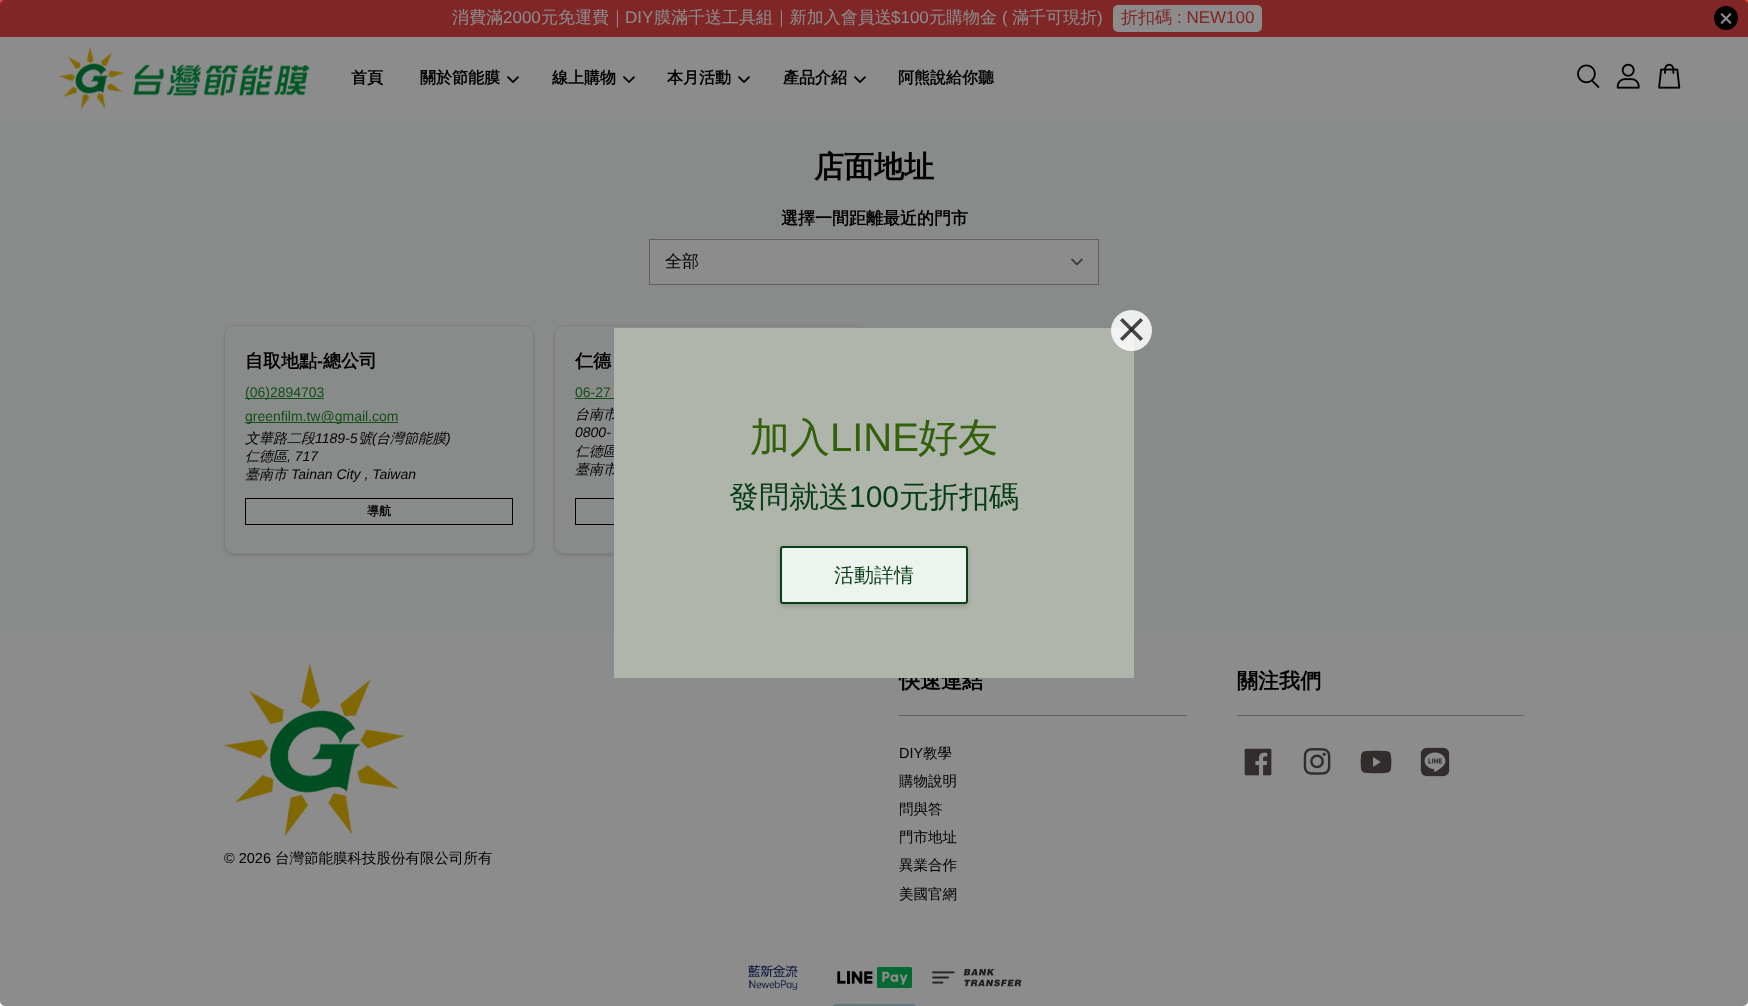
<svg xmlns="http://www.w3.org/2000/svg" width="1748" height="1006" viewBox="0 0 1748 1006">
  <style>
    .t1 { font: 500 17px WenQuanYi Zen Hei; fill: #fff; }
    .t2 { font: 17px Liberation Sans; fill: #fff; }
    .t3 { font: 500 17px WenQuanYi Zen Hei; fill: #e94545; }
    .t4 { font: 17px Liberation Sans; fill: #e94545; }
    .t5 { font: bold 16px WenQuanYi Zen Hei; fill: #000; }
    .t6 { font: bold 30px WenQuanYi Zen Hei; fill: #000; }
    .t7 { font: bold 17px WenQuanYi Zen Hei; fill: #000; }
    .t8 { font: 500 17px WenQuanYi Zen Hei; fill: #000; }
    .t9 { font: bold 18px WenQuanYi Zen Hei; fill: #000; }
    .t10 { font: bold 18px Liberation Sans; fill: #000; }
    .t11 { font: 14px Liberation Sans; fill: #248f2a; }
    .t12 { font: italic 500 14px WenQuanYi Zen Hei; fill: #000; }
    .t13 { font: italic 14px Liberation Sans; fill: #000; }
    .t14 { font: bold 12px WenQuanYi Zen Hei; fill: #000; }
    .t15 { font: bold 21px WenQuanYi Zen Hei; fill: #000; }
    .t16 { font: 14.5px Liberation Sans; fill: #000; }
    .t17 { font: 500 14.5px WenQuanYi Zen Hei; fill: #000; }
    .t18 { font: 500 40px WenQuanYi Zen Hei; fill: #32600b; }
    .t19 { font: 40px Liberation Sans; fill: #32600b; }
    .t20 { font: 500 30px WenQuanYi Zen Hei; fill: #063c17; }
    .t21 { font: 30px Liberation Sans; fill: #063c17; }
    .t22 { font: 500 20px WenQuanYi Zen Hei; fill: #063c17; }
  </style>
  <defs>
    <clipPath id="clip1"><path d="M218 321H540V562H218ZM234 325H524C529.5 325 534 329.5 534 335V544C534 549.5 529.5 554 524 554H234C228.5 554 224 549.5 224 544V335C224 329.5 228.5 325 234 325Z" clip-rule="evenodd"/></clipPath>
    <clipPath id="clip2"><path d="M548 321H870V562H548ZM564 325H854C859.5 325 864 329.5 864 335V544C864 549.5 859.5 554 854 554H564C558.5 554 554 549.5 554 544V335C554 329.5 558.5 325 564 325Z" clip-rule="evenodd"/></clipPath>
  </defs>
  <rect width="100%" height="100%" fill="#fafefd"/>
  <rect x="0" y="0" width="1748" height="37" fill="#e94545"/>
  <text x="452" y="23" class="t1">消費滿</text>
  <text x="503" y="23" class="t2">2000</text>
  <text x="541" y="23" class="t1">元免運費｜</text>
  <text x="625" y="23" class="t2">DIY</text>
  <text x="654" y="23" class="t1">膜滿千送工具組｜新加入會員送</text>
  <text x="891" y="23" class="t2">$100</text>
  <text x="929" y="23" class="t1">元購物金</text>
  <text x="1002" y="23" class="t2">(</text>
  <text x="1012" y="23" class="t1">滿千可現折</text>
  <text x="1097" y="23" class="t2">)</text>
  <rect x="1113" y="5" width="149" height="27" rx="5" fill="#fff"/>
  <text x="1121" y="23" class="t3">折扣碼</text>
  <text x="1177" y="23" class="t4">: NEW100</text>
  <circle cx="1726" cy="18" r="12" fill="#000"/>
  <path d="M1731 13.5C1731.5 14 1731.5 14.5 1731 15L1722.5 23.5C1722 24 1721.5 24 1721 23.5C1720.5 23 1720.5 22.5 1721 22L1729.5 13.5C1730 13 1730.5 13 1731 13.5Z" fill="#fff"/>
  <path d="M1721 13.5C1721.5 13 1722 13 1722.5 13.5L1731 22C1731.5 22.5 1731.5 23 1731 23.5C1730.5 24 1730 24 1729.5 23.5L1721 15C1720.5 14.5 1720.5 14 1721 13.5Z" fill="#fff"/>
  <rect x="0" y="37" width="1748" height="82" fill="#fff"/>
  <image x="59" y="47" width="251" height="62" href="images/1.png"/>
  <text x="351" y="83" class="t5">首頁</text>
  <text x="420" y="83" class="t5">關於節能膜</text>
  <image x="507" y="76" width="12" height="7" href="images/2.png"/>
  <text x="552" y="83" class="t5">線上購物</text>
  <image x="623" y="76" width="12" height="7" href="images/2.png"/>
  <text x="667" y="83" class="t5">本月活動</text>
  <image x="738" y="76" width="12" height="7" href="images/2.png"/>
  <text x="783" y="83" class="t5">產品介紹</text>
  <image x="854" y="76" width="12" height="7" href="images/2.png"/>
  <text x="898" y="83" class="t5">阿熊說給你聽</text>
  <image x="1577" y="64" width="23" height="24" href="images/3.png"/>
  <image x="1616" y="63" width="24" height="26" href="images/4.png"/>
  <image x="1658" y="63" width="23" height="26" href="images/5.png"/>
  <text x="814" y="177" class="t6">店面地址</text>
  <text x="781" y="224" class="t7">選擇一間距離最近的門市</text>
  <rect x="650" y="240" width="448" height="44" fill="#fff"/>
  <image x="1071" y="258" width="12" height="8" href="images/6.png"/>
  <rect x="649.5" y="239.5" width="449" height="45" fill="none" stroke="#b1b1b1"/>
  <text x="665" y="267" class="t8">全部</text>
  <g clip-path="url(#clip1)">
    <rect x="224" y="327" width="310" height="229" rx="10" fill="#6d6d6d33" filter="blur(1.5px)"/>
  </g>
  <rect x="224.5" y="325.5" width="309" height="228" rx="9.5" fill="none" stroke="#e5e5e5"/>
  <text x="245" y="367" class="t9">自取地點</text>
  <text x="317" y="367" class="t10">-</text>
  <text x="323" y="367" class="t9">總公司</text>
  <rect x="245" y="398" width="79" height="1" fill="#248f2a"/>
  <text x="245" y="397" class="t11">(06)2894703</text>
  <rect x="245" y="422" width="153" height="1" fill="#248f2a"/>
  <text x="245" y="421" class="t11">greenfilm.tw@gmail.com</text>
  <text x="245" y="443" class="t12">文華路二段</text>
  <text x="358" y="443" class="t12">號</text>
  <text x="372" y="443" class="t13">(</text>
  <text x="376" y="443" class="t12">台灣節能膜</text>
  <text x="315" y="443" class="t13">1189-5</text>
  <text x="446" y="443" class="t13">)</text>
  <text x="245" y="461" class="t12">仁德區</text>
  <text x="287" y="461" class="t13">, 717</text>
  <text x="245" y="479" class="t12">臺南市</text>
  <text x="291" y="479" class="t13">Tainan City , Taiwan</text>
  <rect x="245.5" y="498.5" width="267" height="26" fill="none" stroke="#000"/>
  <text x="367" y="515" class="t14">導航</text>
  <g clip-path="url(#clip2)">
    <rect x="554" y="327" width="310" height="229" rx="10" fill="#6d6d6d33" filter="blur(1.5px)"/>
  </g>
  <rect x="554.5" y="325.5" width="309" height="228" rx="9.5" fill="none" stroke="#e5e5e5"/>
  <text x="575" y="367" class="t9">仁德</text>
  <text x="575" y="397" class="t11">06-27</text>
  <rect x="575" y="398" width="39" height="1" fill="#248f2a"/>
  <text x="575" y="419" class="t12">台南市</text>
  <text x="575" y="437" class="t13">0800-</text>
  <text x="575" y="456" class="t12">仁德區</text>
  <text x="575" y="474" class="t12">臺南市</text>
  <rect x="575.5" y="498.5" width="267" height="26" fill="none" stroke="#000"/>
  <rect x="0" y="634" width="1748" height="372" fill="#fff"/>
  <rect x="899" y="715" width="288" height="1" fill="#b1b1b1"/>
  <text x="899" y="688" class="t15">快速連結</text>
  <text x="899" y="758" class="t16">DIY</text>
  <text x="923" y="758" class="t17">教學</text>
  <text x="899" y="786" class="t17">購物說明</text>
  <text x="899" y="814" class="t17">問與答</text>
  <text x="899" y="842" class="t17">門市地址</text>
  <text x="899" y="870" class="t17">異業合作</text>
  <text x="899" y="899" class="t17">美國官網</text>
  <rect x="1237" y="715" width="287" height="1" fill="#b1b1b1"/>
  <text x="1237" y="688" class="t15">關注我們</text>
  <image x="1244" y="748" width="28" height="28" href="images/7.png"/>
  <image x="1303" y="748" width="28" height="27" href="images/8.png"/>
  <image x="1360" y="750" width="32" height="24" href="images/9.png"/>
  <image x="1420" y="747" width="30" height="30" href="images/10.png"/>
  <image x="224" y="664" width="180" height="172" href="images/11.png"/>
  <text x="224" y="863" class="t16">© 2026</text>
  <text x="275" y="863" class="t17">台灣節能膜科技股份有限公司所有</text>
  <image x="748" y="965" width="50" height="25" href="images/12.png"/>
  <image x="837" y="967" width="75" height="21" href="images/13.png"/>
  <image x="932" y="968" width="90" height="19" href="images/14.png"/>
  <image x="833" y="1004" width="83" height="2" href="images/15.png"/>
  <rect x="0" y="0" width="1748" height="1006" rx="5" fill="#00000073"/>
  <rect x="614" y="328" width="520" height="350" fill="#afb5aa"/>
  <circle cx="1131.5" cy="330.5" r="20.5" fill="#ffffffd9"/>
  <path d="M1140.5 318L1143 320.5L1122.5 341L1120 338.5Z" fill="#262626d9"/>
  <path d="M1120 320.5L1122.5 318L1143 338.5L1140.5 341Z" fill="#262626d9"/>
  <text x="750" y="451" class="t18">加入</text>
  <text x="830" y="451" class="t19">LINE</text>
  <text x="918" y="451" class="t18">好友</text>
  <text x="729" y="507" class="t20">發問就送</text>
  <text x="849" y="507" class="t21">100</text>
  <text x="899" y="507" class="t20">元折扣碼</text>
  <rect x="780" y="548" width="188" height="58" rx="3" fill="#00000026" filter="blur(2.5px)"/>
  <rect x="781" y="547" width="186" height="56" rx="2" fill="#edf4ef" stroke="#0a4016" stroke-width="2"/>
  <text x="834" y="582" class="t22">活動詳情</text>
</svg>
